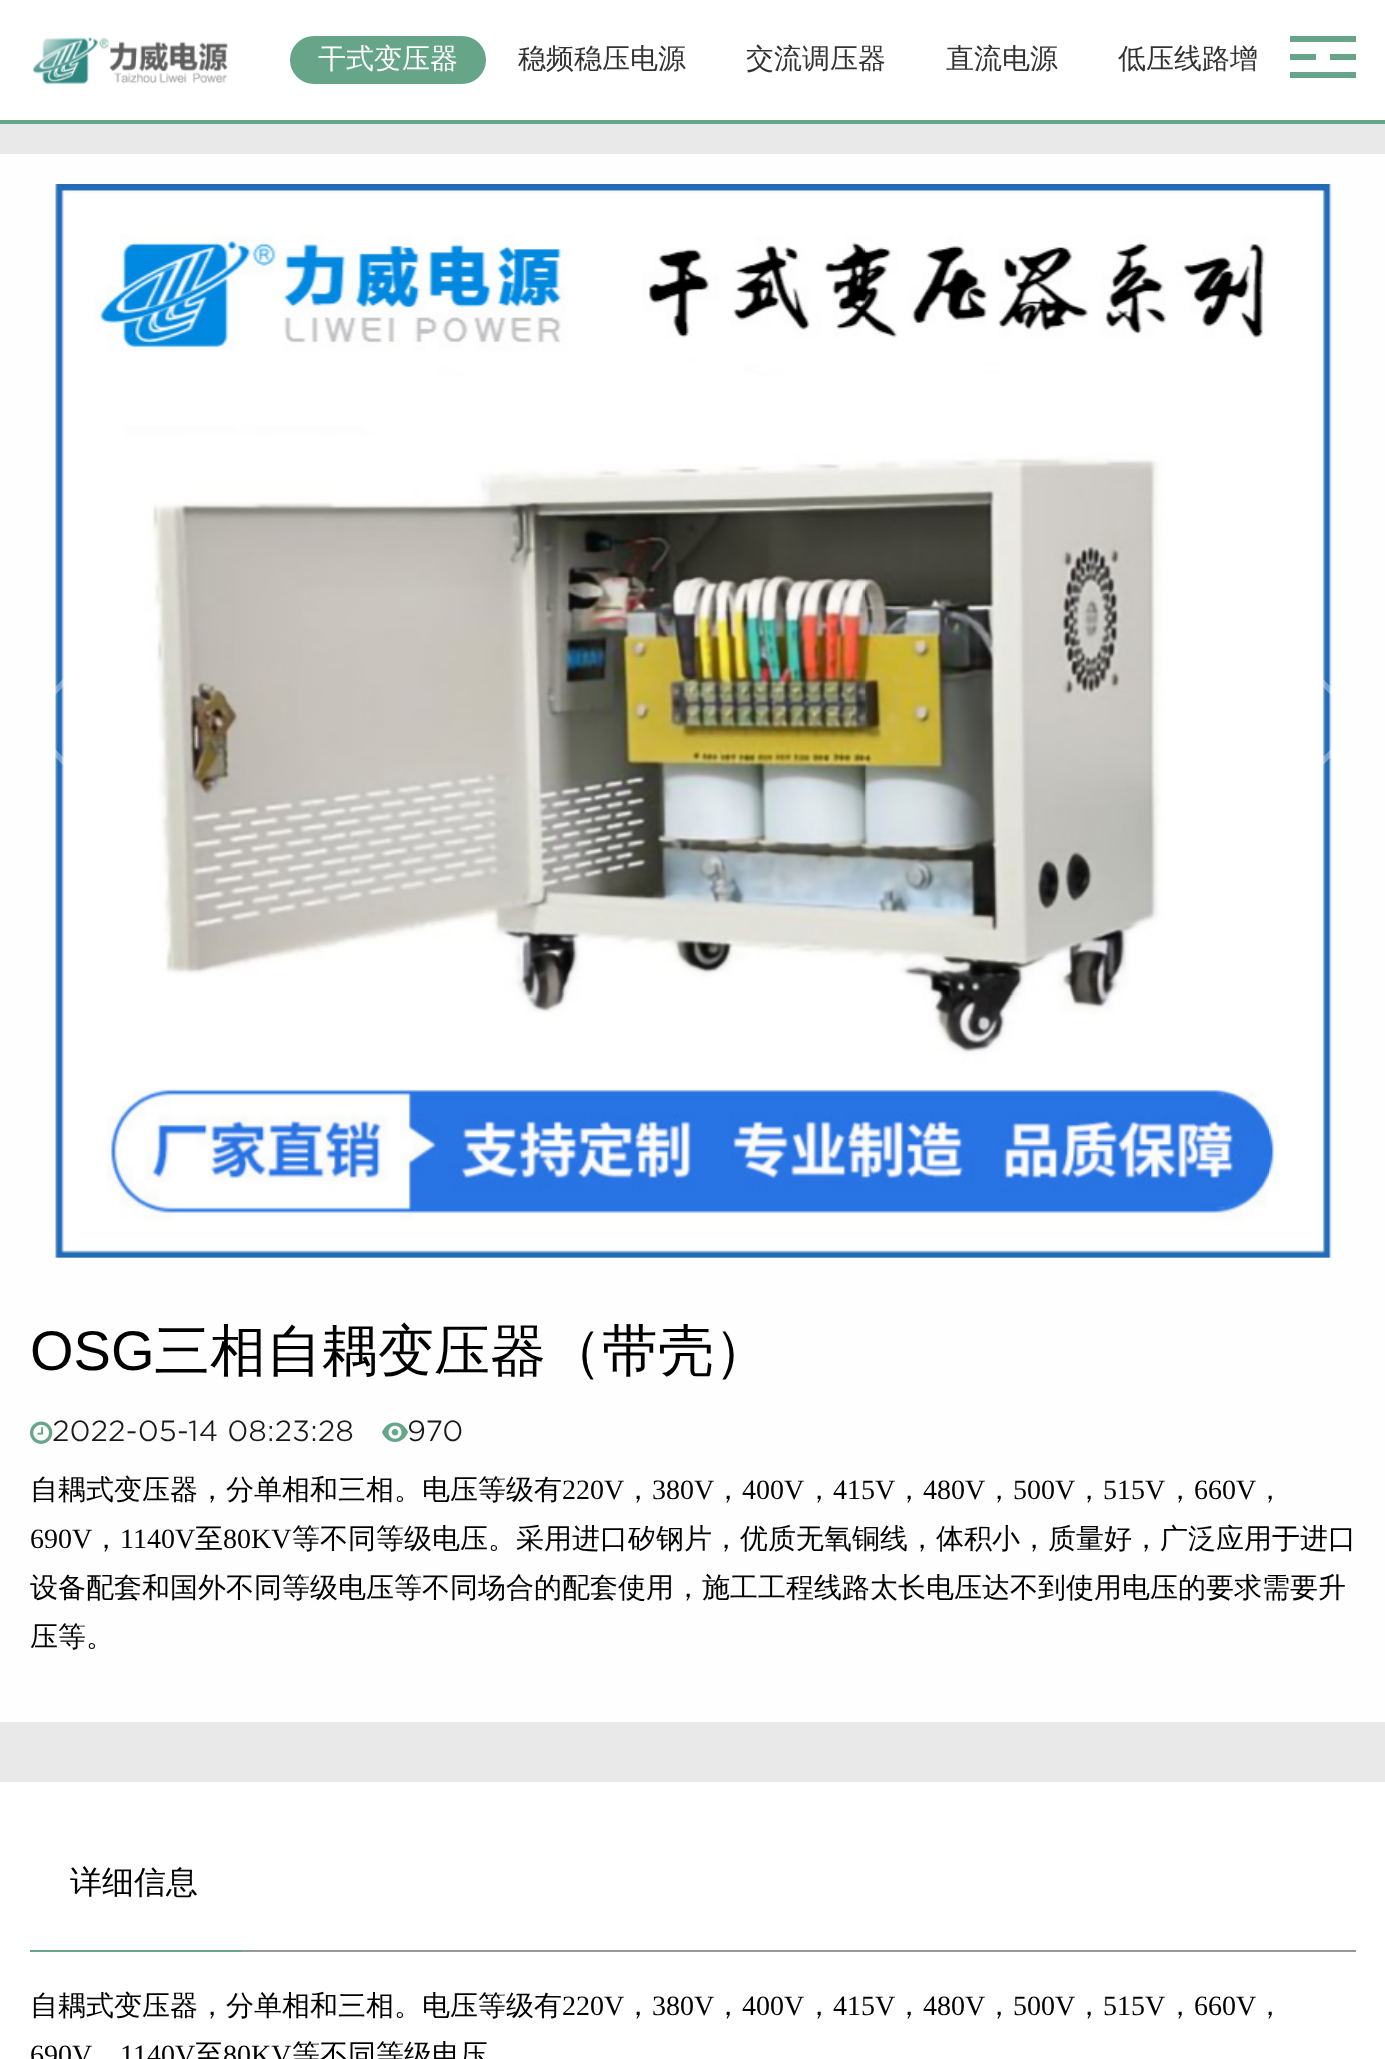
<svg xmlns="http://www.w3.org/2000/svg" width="1385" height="2059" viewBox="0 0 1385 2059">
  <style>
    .t1 { font: 500 28px WenQuanYi Zen Hei; fill: #fff; }
    .t2 { font: 500 28px WenQuanYi Zen Hei; fill: #333; }
    .t3 { font: 56px Liberation Sans; fill: #000; }
    .t4 { font: 500 56px WenQuanYi Zen Hei; fill: #000; }
    .t5 { font: 300 28px 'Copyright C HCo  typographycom'; fill: #191919; }
    .t6 { font: 500 28px WenQuanYi Zen Hei; fill: #000; }
    .t7 { font: 28px Liberation Serif; fill: #000; }
    .t8 { font: 500 32px WenQuanYi Zen Hei; fill: #000; }
  </style>
  <rect width="100%" height="100%" fill="#fff"/>
  <image x="33" y="37" width="195" height="48" href="images/1.png"/>
  <rect x="290" y="36" width="196" height="48" rx="24" fill="#66a588"/>
  <text x="318" y="68" class="t1">干式变压器</text>
  <text x="518" y="68" class="t2">稳频稳压电源</text>
  <text x="746" y="68" class="t2">交流调压器</text>
  <text x="946" y="68" class="t2">直流电源</text>
  <text x="1118" y="68" class="t2">低压线路增</text>
  <rect x="1290" y="36" width="66" height="6" fill="#66a588"/>
  <rect x="1290" y="54" width="26" height="6" fill="#66a588"/>
  <rect x="1330" y="54" width="26" height="6" fill="#66a588"/>
  <rect x="1290" y="72" width="66" height="6" fill="#66a588"/>
  <rect x="0" y="124" width="1385" height="1658" fill="#e9e9e9"/>
  <rect x="0" y="120" width="1385" height="4" fill="#66a588"/>
  <rect x="0" y="154" width="1385" height="1568" fill="#fefefe"/>
  <image x="55" y="184" width="1277" height="1074" href="images/2.png"/>
  <path d="M20 722L64 678L68 682L28 722L68 762L64 766Z" fill="#ffffff59"/>
  <path d="M1366 722L1322 766L1318 762L1358 722L1318 682L1322 678Z" fill="#ffffff59"/>
  <text x="30" y="1370" class="t3">OSG</text>
  <text x="154" y="1370" class="t4">三相自耦变压器（带壳）</text>
  <image x="30" y="1421" width="23" height="23" href="images/3.png"/>
  <text x="52" y="1441" class="t5">2022-05-14 08:23:28</text>
  <image x="382" y="1422" width="26" height="20" href="images/4.png"/>
  <text x="407" y="1441" class="t5">970</text>
  <text x="30" y="1499" class="t6">自耦式变压器，分单相和三相。电压等级有</text>
  <text x="562" y="1499" class="t7">220V</text>
  <text x="624" y="1499" class="t6">，</text>
  <text x="652" y="1499" class="t7">380V</text>
  <text x="714" y="1499" class="t6">，</text>
  <text x="742" y="1499" class="t7">400V</text>
  <text x="805" y="1499" class="t6">，</text>
  <text x="833" y="1499" class="t7">415V</text>
  <text x="895" y="1499" class="t6">，</text>
  <text x="923" y="1499" class="t7">480V</text>
  <text x="985" y="1499" class="t6">，</text>
  <text x="1013" y="1499" class="t7">500V</text>
  <text x="1075" y="1499" class="t6">，</text>
  <text x="1103" y="1499" class="t7">515V</text>
  <text x="1166" y="1499" class="t6">，</text>
  <text x="1194" y="1499" class="t7">660V</text>
  <text x="1256" y="1499" class="t6">，</text>
  <text x="30" y="1548" class="t7">690V</text>
  <text x="92" y="1548" class="t6">，</text>
  <text x="120" y="1548" class="t7">1140V</text>
  <text x="195" y="1548" class="t6">至</text>
  <text x="223" y="1548" class="t7">80KV</text>
  <text x="292" y="1548" class="t6">等不同等级电压。采用进口矽钢片，优质无氧铜线，体积小，质量好，广泛应用于进口</text>
  <text x="30" y="1597" class="t6">设备配套和国外不同等级电压等不同场合的配套使用，施工工程线路太长电压达不到使用电压的要求需要升</text>
  <text x="30" y="1646" class="t6">压等。</text>
  <rect x="242" y="1950" width="1114" height="2" fill="#989898"/>
  <rect x="30" y="1950" width="212" height="2" fill="#66a588"/>
  <text x="70" y="1893" class="t8">详细信息</text>
  <text x="30" y="2015" class="t6">自耦式变压器，分单相和三相。电压等级有</text>
  <text x="562" y="2015" class="t7">220V</text>
  <text x="624" y="2015" class="t6">，</text>
  <text x="652" y="2015" class="t7">380V</text>
  <text x="714" y="2015" class="t6">，</text>
  <text x="742" y="2015" class="t7">400V</text>
  <text x="805" y="2015" class="t6">，</text>
  <text x="833" y="2015" class="t7">415V</text>
  <text x="895" y="2015" class="t6">，</text>
  <text x="923" y="2015" class="t7">480V</text>
  <text x="985" y="2015" class="t6">，</text>
  <text x="1013" y="2015" class="t7">500V</text>
  <text x="1075" y="2015" class="t6">，</text>
  <text x="1103" y="2015" class="t7">515V</text>
  <text x="1166" y="2015" class="t6">，</text>
  <text x="1194" y="2015" class="t7">660V</text>
  <text x="1256" y="2015" class="t6">，</text>
  <text x="30" y="2064" class="t7">690V</text>
  <text x="120" y="2064" class="t7">1140V</text>
  <text x="195" y="2064" class="t6">至</text>
  <text x="223" y="2064" class="t7">80KV</text>
  <text x="292" y="2064" class="t6">等不同等级电压</text>
</svg>
